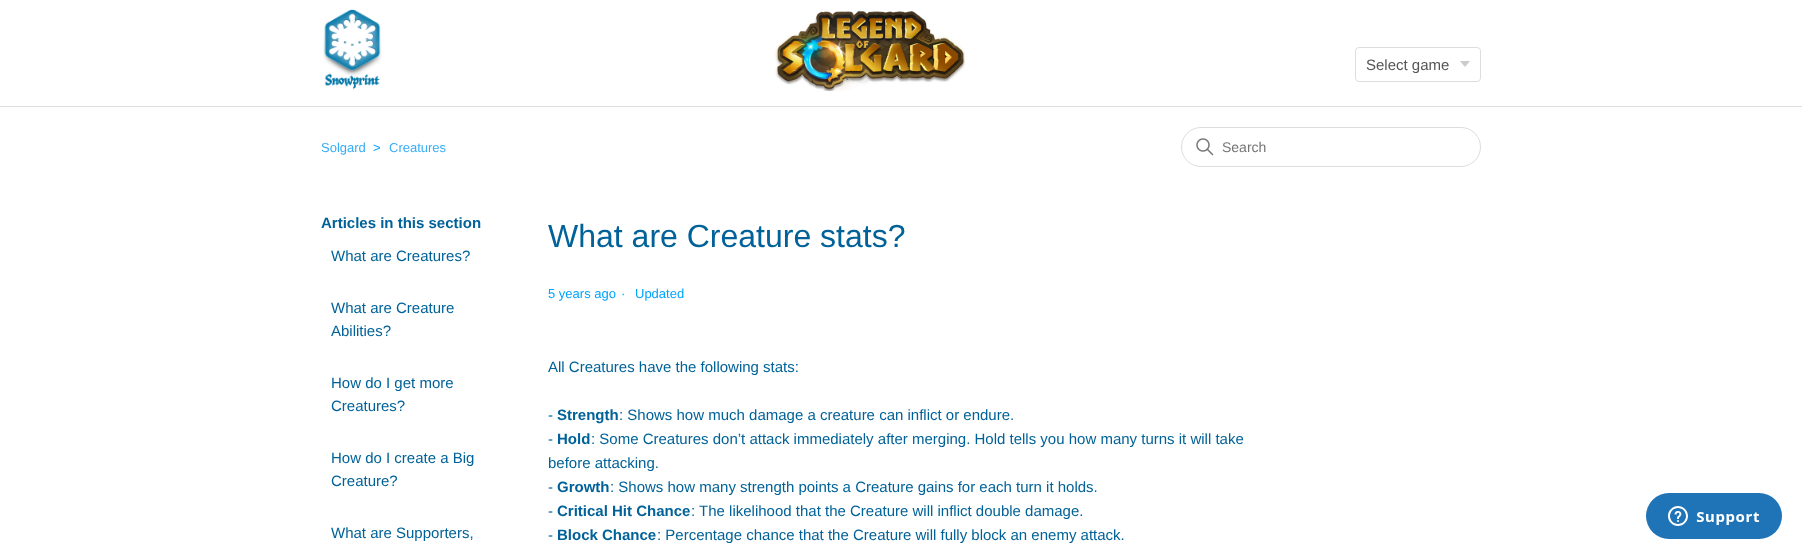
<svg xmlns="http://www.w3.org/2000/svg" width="1802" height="553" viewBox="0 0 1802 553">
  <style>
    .t1 { font: 15px Liberation Sans; fill: #555; }
    .t2 { font: 13px Liberation Sans; fill: #36adf6; }
    .t3 { font: 13px Liberation Sans; fill: #00a4fe; }
    .t4 { font: 14px Liberation Sans; fill: #757575; }
    .t5 { font: bold 15px Liberation Sans; fill: #006298; }
    .t6 { font: 15px Liberation Sans; fill: #006298; }
    .t7 { font: 32px Liberation Sans; fill: #006298; }
  </style>
  <rect width="100%" height="100%" fill="#fff"/>
  <image x="323" y="9" width="59" height="81" href="images/1.png"/>
  <image x="774" y="10" width="191" height="81" href="images/2.png"/>
  <path d="M1460 61H1470L1465 67Z" fill="#ccc"/>
  <rect x="1355.5" y="47.5" width="125" height="34" rx="3.5" fill="none" stroke="#ddd"/>
  <text x="1366" y="70" class="t1">Select game</text>
  <rect x="0" y="106" width="1802" height="1" fill="#ddd"/>
  <text x="321" y="152" class="t2">Solgard</text>
  <text x="373" y="152" class="t3">&gt;</text>
  <text x="389" y="152" class="t2">Creatures</text>
  <rect x="1181.5" y="127.5" width="299" height="39" rx="19.5" fill="none" stroke="#ddd"/>
  <image x="1196" y="138" width="18" height="18" href="images/3.png"/>
  <text x="1222" y="152" class="t4">Search</text>
  <text x="321" y="228" class="t5">Articles in this section</text>
  <text x="331" y="261" class="t6">What are Creatures?</text>
  <text x="331" y="313" class="t6">What are Creature</text>
  <text x="331" y="336" class="t6">Abilities?</text>
  <text x="331" y="388" class="t6">How do I get more</text>
  <text x="331" y="411" class="t6">Creatures?</text>
  <text x="331" y="463" class="t6">How do I create a Big</text>
  <text x="331" y="486" class="t6">Creature?</text>
  <text x="331" y="538" class="t6">What are Supporters,</text>
  <text x="548" y="247" class="t7">What are Creature stats?</text>
  <text x="548" y="298" class="t3">5 years ago</text>
  <text x="621" y="298" class="t3">·</text>
  <text x="635" y="298" class="t3">Updated</text>
  <text x="548" y="372" class="t6">All Creatures have the following stats:</text>
  <text x="548" y="420" class="t6">-</text>
  <text x="557" y="420" class="t5">Strength</text>
  <text x="619" y="420" class="t6">: Shows how much damage a creature can inflict or endure.</text>
  <text x="548" y="444" class="t6">-</text>
  <text x="557" y="444" class="t5">Hold</text>
  <text x="591" y="444" class="t6">: Some Creatures don’t attack immediately after merging. Hold tells you how many turns it will take</text>
  <text x="548" y="468" class="t6">before attacking.</text>
  <text x="548" y="492" class="t6">-</text>
  <text x="557" y="492" class="t5">Growth</text>
  <text x="610" y="492" class="t6">: Shows how many strength points a Creature gains for each turn it holds.</text>
  <text x="548" y="516" class="t6">-</text>
  <text x="557" y="516" class="t5">Critical Hit Chance</text>
  <text x="691" y="516" class="t6">: The likelihood that the Creature will inflict double damage.</text>
  <text x="548" y="540" class="t6">-</text>
  <text x="557" y="540" class="t5">Block Chance</text>
  <text x="657" y="540" class="t6">: Percentage chance that the Creature will fully block an enemy attack.</text>
  <image x="1646" y="493" width="136" height="46" href="images/4.png"/>
</svg>
